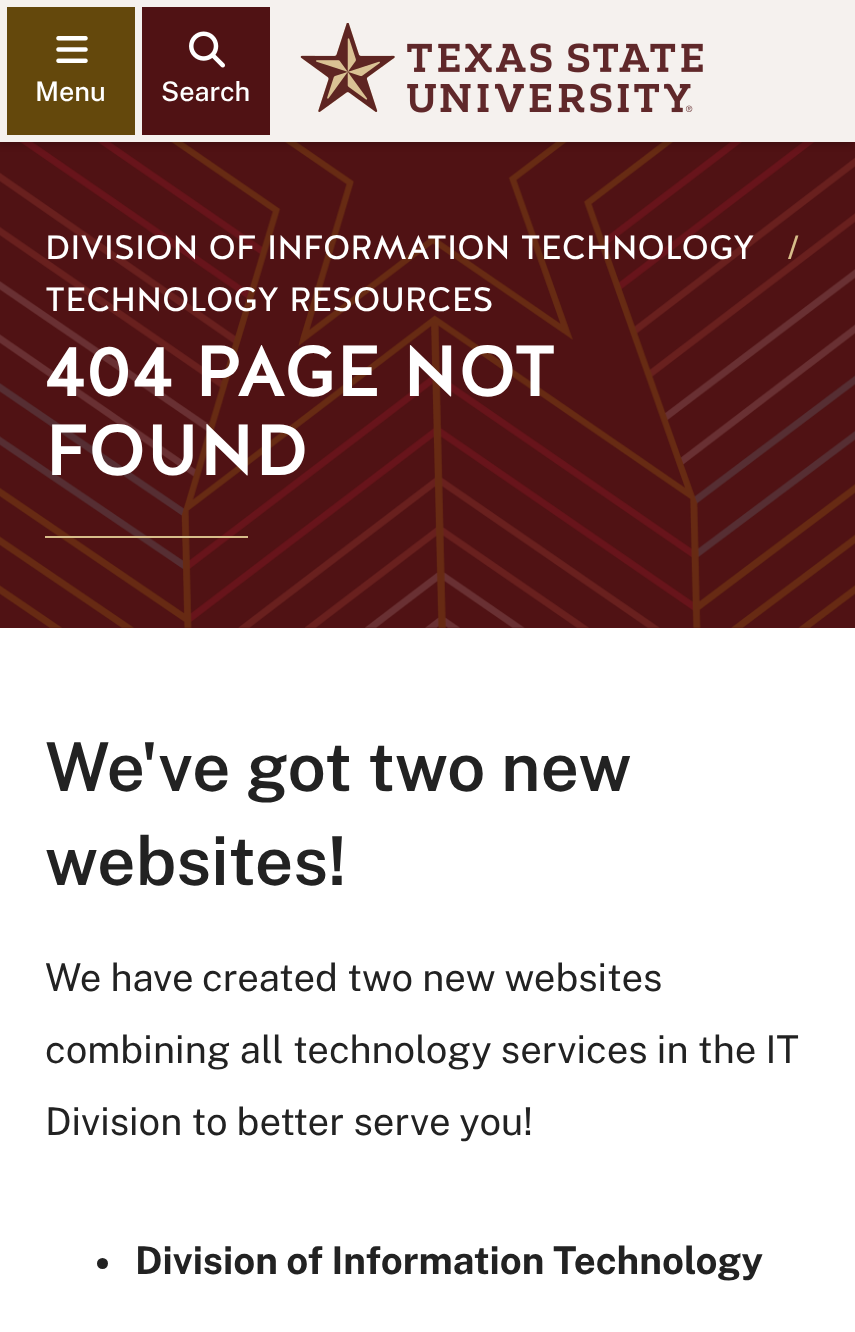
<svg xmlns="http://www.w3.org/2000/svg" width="855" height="1332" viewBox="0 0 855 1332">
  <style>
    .t1 { font: 500 27px Public Sans; fill: #fff; }
    .t2 { font: 33.75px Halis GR; fill: #fff; }
    .t3 { font: 33.75px Halis GR; fill: #d7bd8a; }
    .t4 { font: 500 72px Halis GR; fill: #fff; }
    .t5 { font: 600 67.5px Public Sans; fill: #222; }
    .t6 { font: 38.25px Public Sans; fill: #222; }
    .t7 { font: bold 38.25px Public Sans; fill: #222; }
  </style>
  <rect width="100%" height="100%" fill="#fff"/>
  <rect x="0" y="142" width="855" height="486" fill="#501214"/>
  <image x="0" y="142" width="855" height="486" href="images/4.png"/>
  <rect x="-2" y="2" width="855" height="142" fill="#00000040" filter="blur(3.5px)"/>
  <rect x="0" y="0" width="855" height="142" fill="#f5f1ee"/>
  <rect x="7" y="7" width="128" height="128" fill="#64480c"/>
  <image x="56" y="36" width="32" height="27" href="images/1.png"/>
  <text x="35" y="101" class="t1">Menu</text>
  <rect x="142" y="7" width="128" height="128" fill="#501214"/>
  <image x="189" y="31" width="36" height="37" href="images/2.png"/>
  <text x="161" y="101" class="t1">Search</text>
  <image x="300" y="23" width="403" height="90" href="images/3.png"/>
  <text x="45" y="259" class="t2">DIVISION OF INFORMATION TECHNOLOGY</text>
  <text x="787" y="259" class="t3">/</text>
  <text x="45" y="311" class="t2">TECHNOLOGY RESOURCES</text>
  <text x="45" y="396" class="t4">404 PAGE NOT</text>
  <text x="45" y="475" class="t4">FOUND</text>
  <rect x="45" y="536" width="203" height="2" fill="#d7bd8a"/>
  <text x="45" y="791" class="t5">We've got two new</text>
  <text x="45" y="885" class="t5">websites!</text>
  <text x="45" y="991" class="t6">We have created two new websites</text>
  <text x="45" y="1063" class="t6">combining all technology services in the IT</text>
  <text x="45" y="1135" class="t6">Division to better serve you!</text>
  <circle cx="102.5" cy="1263.5" r="5.5" fill="#222"/>
  <text x="135" y="1274" class="t7">Division of Information Technology</text>
</svg>
